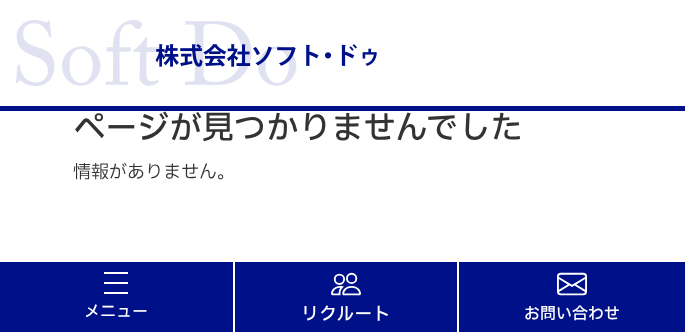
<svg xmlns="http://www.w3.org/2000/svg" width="685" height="332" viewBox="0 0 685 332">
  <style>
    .t1 { font: 500 32.25px IBM Plex Sans JP; fill: #333; }
    .t2 { font: 18px IBM Plex Sans JP; fill: #333; }
    .t3 { font: 500 16px IBM Plex Sans JP; fill: #fff; }
    .t4 { font: 500 18px IBM Plex Sans JP; fill: #fff; }
  </style>
  <rect width="100%" height="100%" fill="#fff"/>
  <text x="73" y="139" class="t1">ページが見つかりませんでした</text>
  <text x="73" y="178" class="t2">情報がありません。</text>
  <rect x="0" y="262" width="233" height="70" fill="#001089"/>
  <rect x="104" y="272" width="24" height="2" fill="#fff"/>
  <rect x="104" y="282" width="24" height="2" fill="#fff"/>
  <rect x="104" y="292" width="24" height="2" fill="#fff"/>
  <text x="84" y="317" class="t3">メニュー</text>
  <rect x="0" y="106" width="685" height="5" fill="#001089"/>
  <image x="16" y="20" width="361" height="66" href="images/1.png"/>
  <rect x="235" y="262" width="222" height="70" fill="#001089"/>
  <image x="331" y="272" width="30" height="24" href="images/2.png"/>
  <text x="301" y="320" class="t4">リクルート</text>
  <rect x="459" y="262" width="226" height="70" fill="#001089"/>
  <image x="557" y="272" width="30" height="24" href="images/3.png"/>
  <text x="524" y="319" class="t3">お問い合わせ</text>
</svg>
